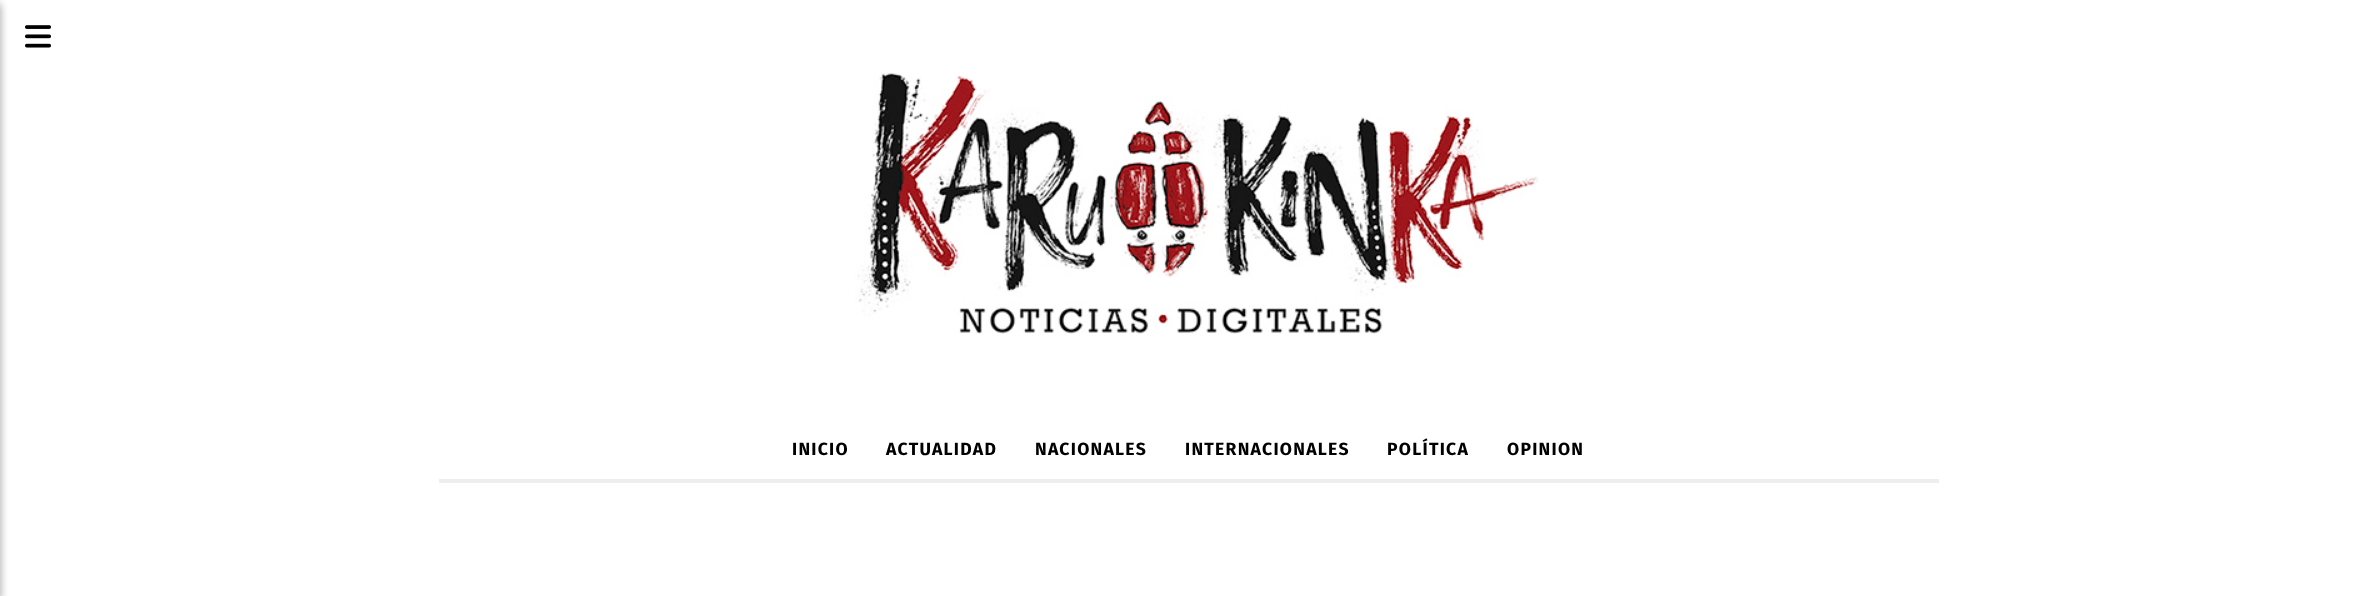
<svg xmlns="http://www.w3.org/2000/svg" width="2376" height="596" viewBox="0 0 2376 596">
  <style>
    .t1 { font: bold 17.6px Fira Sans; letter-spacing: 1.25px; fill: #000; }
  </style>
  <rect width="100%" height="100%" fill="#fff"/>
  <rect x="-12" y="4" width="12" height="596" fill="#0000003b" filter="blur(4px)"/>
  <rect x="-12" y="4" width="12" height="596" fill="#00000029" filter="blur(4px)"/>
  <image x="25" y="25" width="26" height="23" href="images/1.png"/>
  <image x="855" y="71" width="684" height="263" href="images/2.png"/>
  <rect x="439" y="479" width="1500" height="4" fill="#eee"/>
  <text x="792" y="455" class="t1">INICIO</text>
  <text x="886" y="455" class="t1">ACTUALIDAD</text>
  <text x="1035" y="455" class="t1">NACIONALES</text>
  <text x="1185" y="455" class="t1">INTERNACIONALES</text>
  <text x="1387" y="455" class="t1">POLÍTICA</text>
  <text x="1507" y="455" class="t1">OPINION</text>
</svg>
